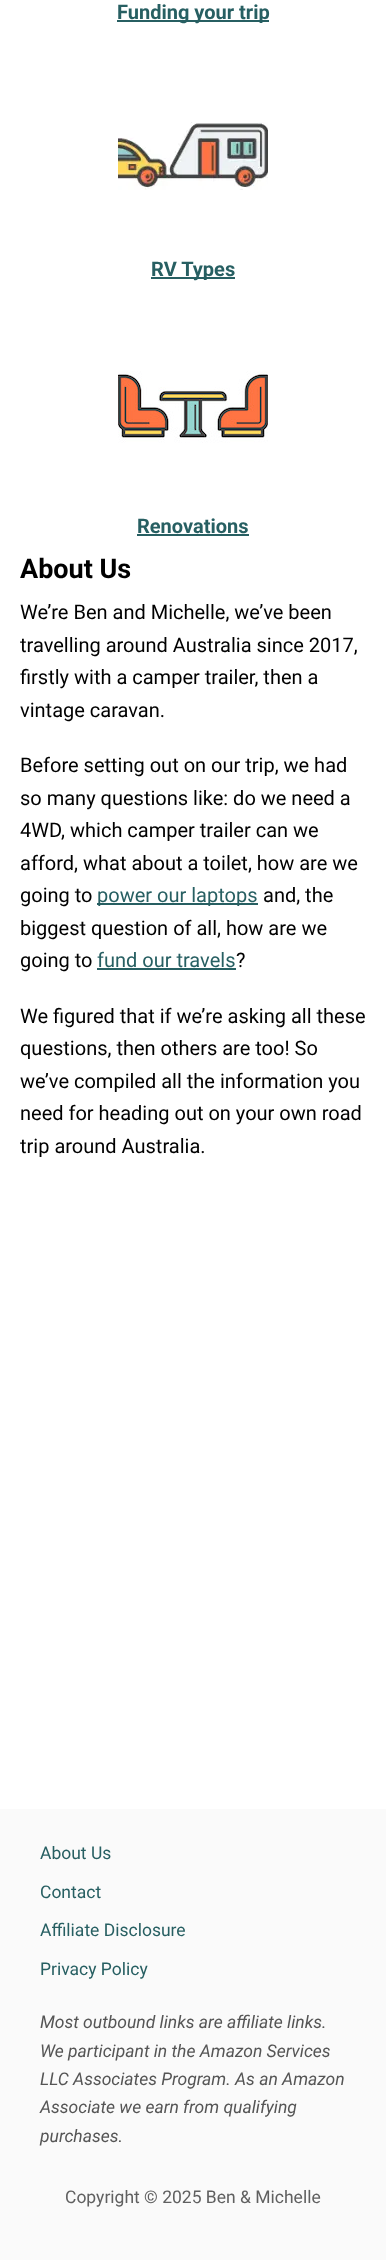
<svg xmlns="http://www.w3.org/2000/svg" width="386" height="2260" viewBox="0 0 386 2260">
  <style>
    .t1 { font: bold 20px Roboto; fill: #275f62; }
    .t2 { font: bold 27px Roboto; fill: #000; }
    .t3 { font: 20px Roboto; fill: #000; }
    .t4 { font: 20px Roboto; fill: #275f62; }
    .t5 { font: 17.5px Roboto; fill: #275f62; }
    .t6 { font: italic 17.5px Roboto; fill: #555; }
    .t7 { font: 17.5px Roboto; fill: #606060; }
  </style>
  <rect width="100%" height="100%" fill="#fff"/>
  <rect x="117" y="20" width="152" height="2" fill="#275f62"/>
  <text x="117" y="19" class="t1">Funding your trip</text>
  <image x="118" y="122" width="150" height="68" href="images/1.png"/>
  <rect x="151" y="277" width="84" height="2" fill="#275f62"/>
  <text x="151" y="276" class="t1">RV Types</text>
  <image x="118" y="371" width="150" height="72" href="images/2.png"/>
  <text x="137" y="533" class="t1">Renovations</text>
  <rect x="137" y="534" width="112" height="2" fill="#275f62"/>
  <text x="20" y="578" class="t2">About Us</text>
  <text x="20" y="619" class="t3">We’re Ben and Michelle, we’ve been</text>
  <text x="20" y="652" class="t3">travelling around Australia since 2017,</text>
  <text x="20" y="684" class="t3">firstly with a camper trailer, then a</text>
  <text x="20" y="717" class="t3">vintage caravan.</text>
  <text x="20" y="772" class="t3">Before setting out on our trip, we had</text>
  <text x="20" y="805" class="t3">so many questions like: do we need a</text>
  <text x="20" y="837" class="t3">4WD, which camper trailer can we</text>
  <text x="20" y="870" class="t3">afford, what about a toilet, how are we</text>
  <text x="20" y="902" class="t3">going to</text>
  <rect x="97" y="903" width="161" height="2" fill="#275f62"/>
  <text x="97" y="902" class="t4">power our laptops</text>
  <text x="263" y="902" class="t3">and, the</text>
  <text x="20" y="935" class="t3">biggest question of all, how are we</text>
  <text x="20" y="967" class="t3">going to</text>
  <text x="97" y="967" class="t4">fund our travels</text>
  <rect x="97" y="968" width="139" height="2" fill="#275f62"/>
  <text x="236" y="967" class="t3">?</text>
  <text x="20" y="1023" class="t3">We figured that if we’re asking all these</text>
  <text x="20" y="1055" class="t3">questions, then others are too! So</text>
  <text x="20" y="1088" class="t3">we’ve compiled all the information you</text>
  <text x="20" y="1120" class="t3">need for heading out on your own road</text>
  <text x="20" y="1153" class="t3">trip around Australia.</text>
  <rect x="0" y="1809" width="386" height="451" fill="#fafafa"/>
  <text x="40" y="1859" class="t5">About Us</text>
  <text x="40" y="1898" class="t5">Contact</text>
  <text x="40" y="1936" class="t5">Affiliate Disclosure</text>
  <text x="40" y="1975" class="t5">Privacy Policy</text>
  <text x="40" y="2028" class="t6">Most outbound links are affiliate links.</text>
  <text x="40" y="2057" class="t6">We participant in the Amazon Services</text>
  <text x="40" y="2085" class="t6">LLC Associates Program. As an Amazon</text>
  <text x="40" y="2113" class="t6">Associate we earn from qualifying</text>
  <text x="40" y="2142" class="t6">purchases.</text>
  <text x="65" y="2203" class="t7">Copyright © 2025 Ben &amp; Michelle</text>
</svg>
